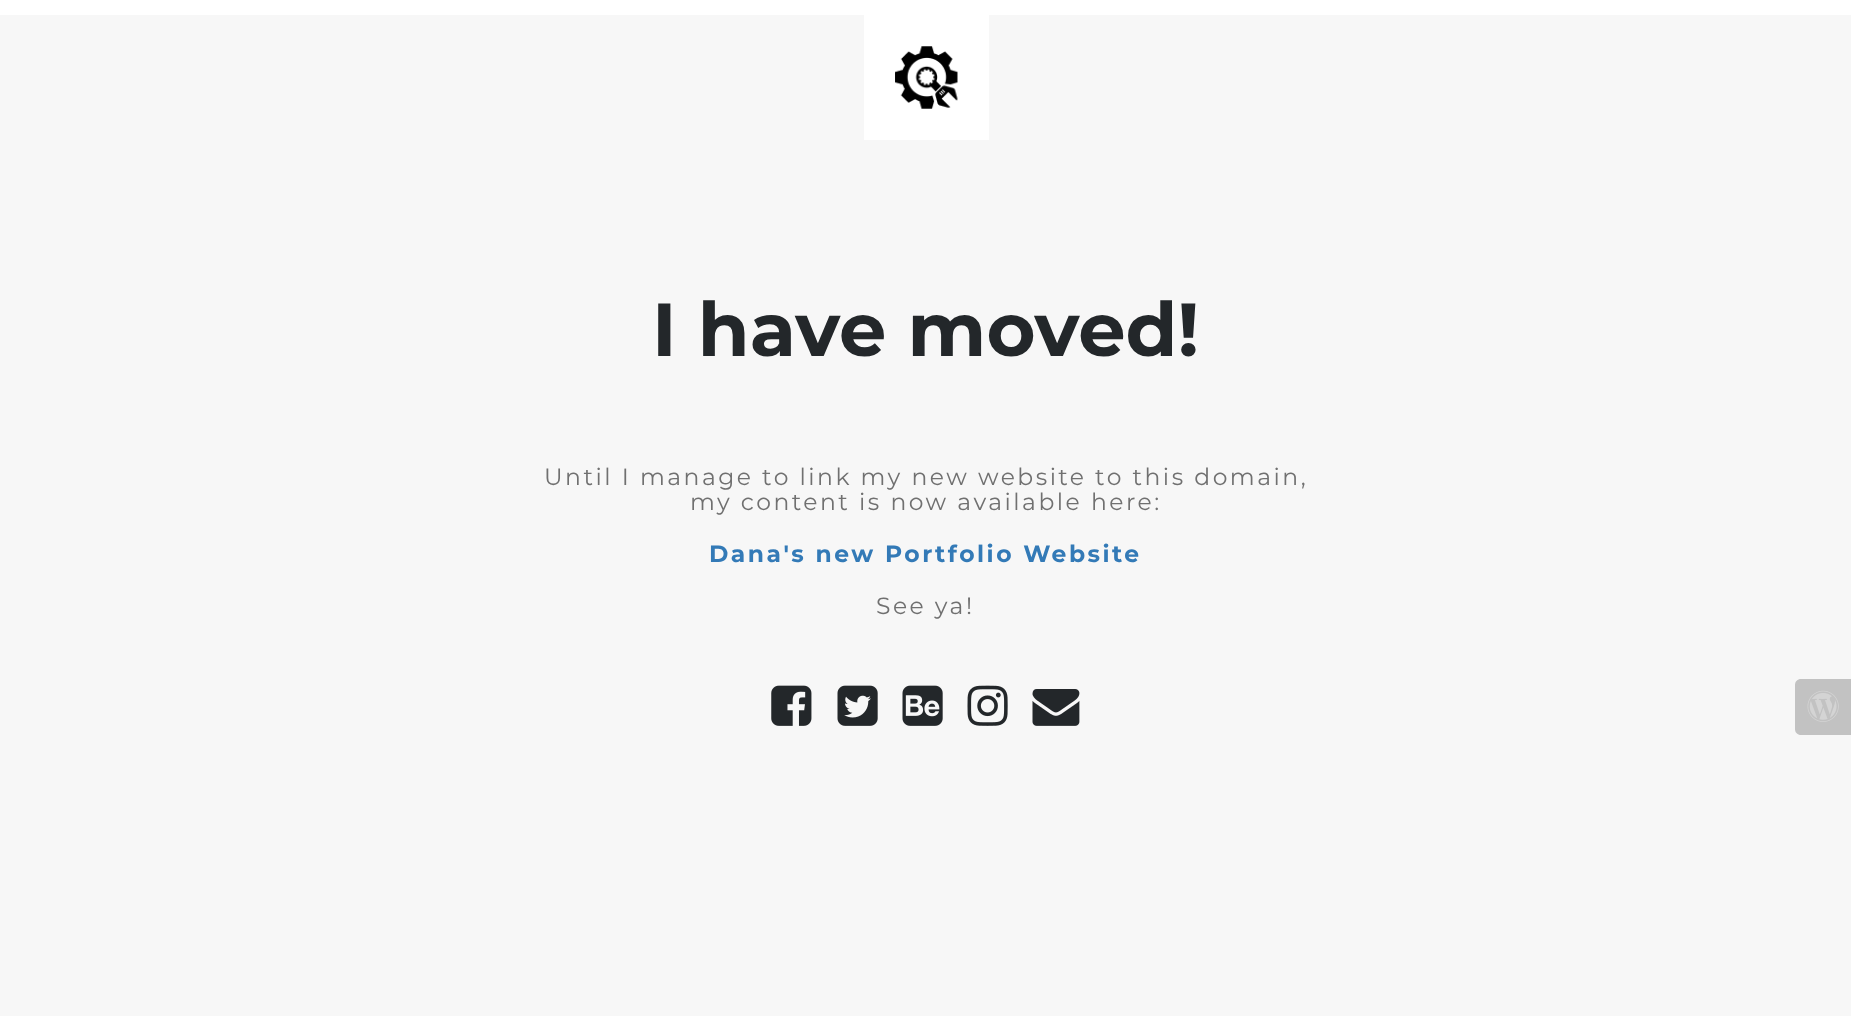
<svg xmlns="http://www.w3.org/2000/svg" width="1851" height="1016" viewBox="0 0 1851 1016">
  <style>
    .t1 { font: 100 75px Montserrat; fill: #23272a; }
    .t2 { font: 100 23.45px 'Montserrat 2'; letter-spacing: 2.5px; fill: #707070; }
    .t3 { font: 100 23.45px Montserrat; letter-spacing: 2.5px; fill: #337ab7; }
  </style>
  <rect width="100%" height="100%" fill="#f7f7f7"/>
  <rect x="0" y="0" width="1851" height="15" fill="#fff"/>
  <rect x="864" y="15" width="125" height="125" fill="#fff"/>
  <image x="895" y="46" width="63" height="63" href="images/1.png"/>
  <text x="652" y="356" class="t1">I have moved!</text>
  <text x="544" y="485" class="t2">Until I manage to link my new website to this domain,</text>
  <text x="690" y="510" class="t2">my content is now available here:</text>
  <text x="709" y="562" class="t3">Dana's new Portfolio Website</text>
  <text x="876" y="614" class="t2">See ya!</text>
  <image x="771" y="685" width="41" height="41" href="images/2.png"/>
  <image x="837" y="685" width="41" height="41" href="images/3.png"/>
  <image x="902" y="685" width="41" height="41" href="images/4.png"/>
  <image x="967" y="685" width="41" height="41" href="images/5.png"/>
  <image x="1032" y="689" width="48" height="37" href="images/6.png"/>
  <path d="M1801 679H1851V735H1801C1797.5 735 1795 732.5 1795 729V685C1795 681.5 1797.5 679 1801 679Z" fill="#c2c2c2"/>
  <image x="1807" y="690" width="32" height="32" href="images/7.png"/>
</svg>
